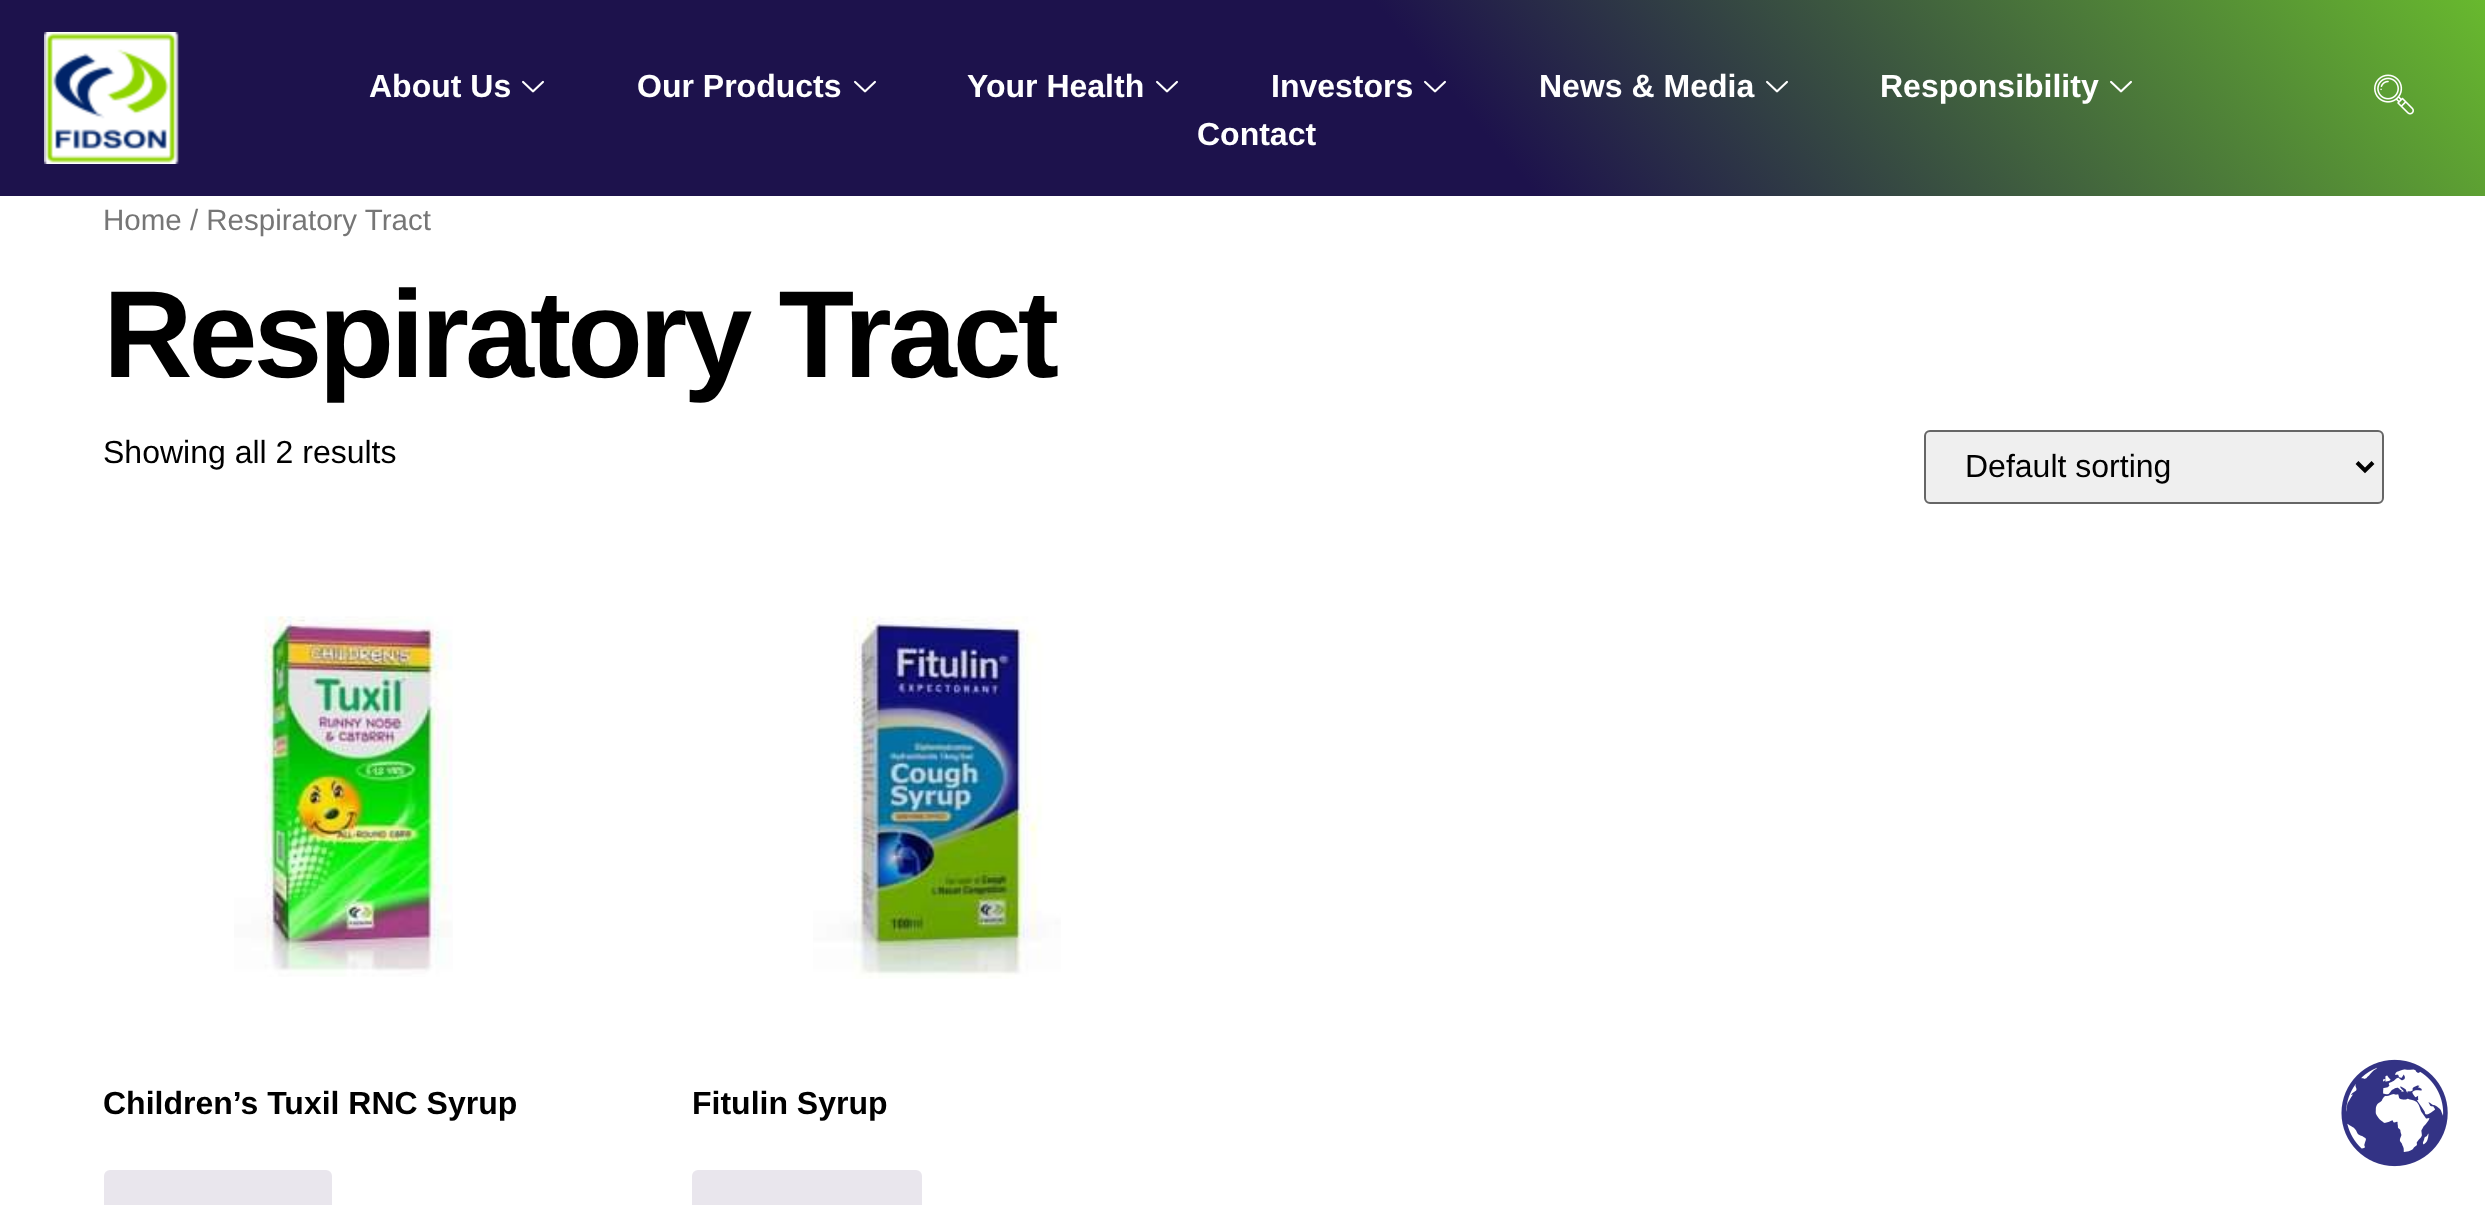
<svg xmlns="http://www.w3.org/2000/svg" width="2485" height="1205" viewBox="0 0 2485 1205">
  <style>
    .t1 { font: bold 32px Liberation Sans; fill: #fff; }
    .t2 { font: 29.5px Liberation Sans; fill: #767676; }
    .t3 { font: bold 124px Liberation Sans; letter-spacing: -4px; fill: #000; }
    .t4 { font: 32px Liberation Sans; fill: #000; }
    .t5 { font: bold 32px Liberation Sans; fill: #000; }
  </style>
  <defs>
    <linearGradient id="g1" gradientUnits="userSpaceOnUse" x1="2021" y1="-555" x2="465" y2="751"><stop offset="0" stop-color="#68b92e"/><stop offset="0.42" stop-color="#1d124c"/></linearGradient>
  </defs>
  <rect width="100%" height="100%" fill="#fff"/>
  <rect x="0" y="0" width="2485" height="196" fill="url(#g1)"/>
  <image x="44" y="32" width="135" height="132" href="images/1.png"/>
  <text x="369" y="97" class="t1">About Us</text>
  <image x="522" y="80" width="22" height="13" href="images/2.png"/>
  <text x="637" y="97" class="t1">Our Products</text>
  <image x="854" y="80" width="22" height="13" href="images/2.png"/>
  <text x="967" y="97" class="t1">Your Health</text>
  <image x="1156" y="80" width="22" height="13" href="images/2.png"/>
  <text x="1271" y="97" class="t1">Investors</text>
  <image x="1424" y="80" width="22" height="13" href="images/3.png"/>
  <text x="1539" y="97" class="t1">News &amp; Media</text>
  <image x="1766" y="80" width="22" height="13" href="images/4.png"/>
  <text x="1880" y="97" class="t1">Responsibility</text>
  <image x="2110" y="80" width="22" height="13" href="images/5.png"/>
  <text x="1197" y="145" class="t1">Contact</text>
  <image x="2374" y="74" width="40" height="41" href="images/6.png"/>
  <text x="103" y="230" class="t2">Home / Respiratory Tract</text>
  <text x="103" y="377" class="t3">Respiratory Tract</text>
  <text x="103" y="463" class="t4">Showing all 2 results</text>
  <rect x="1925" y="431" width="458" height="72" rx="5" fill="#efefef" stroke="#666" stroke-width="2"/>
  <path d="M2357 462.5L2365 470.5L2373 462.5" fill="none" stroke="#000" stroke-width="4"/>
  <text x="1965" y="477" class="t4">Default sorting</text>
  <image x="234" y="616" width="219" height="361" href="images/7.png"/>
  <text x="103" y="1114" class="t5">Children’s Tuxil RNC Syrup</text>
  <rect x="104" y="1170" width="228" height="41" rx="6" fill="#e9e6ed"/>
  <image x="813" y="616" width="248" height="363" href="images/8.png"/>
  <text x="692" y="1114" class="t5">Fitulin Syrup</text>
  <rect x="692" y="1170" width="230" height="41" rx="6" fill="#e9e6ed"/>
  <image x="2341" y="1059" width="107" height="108" href="images/9.png"/>
</svg>
